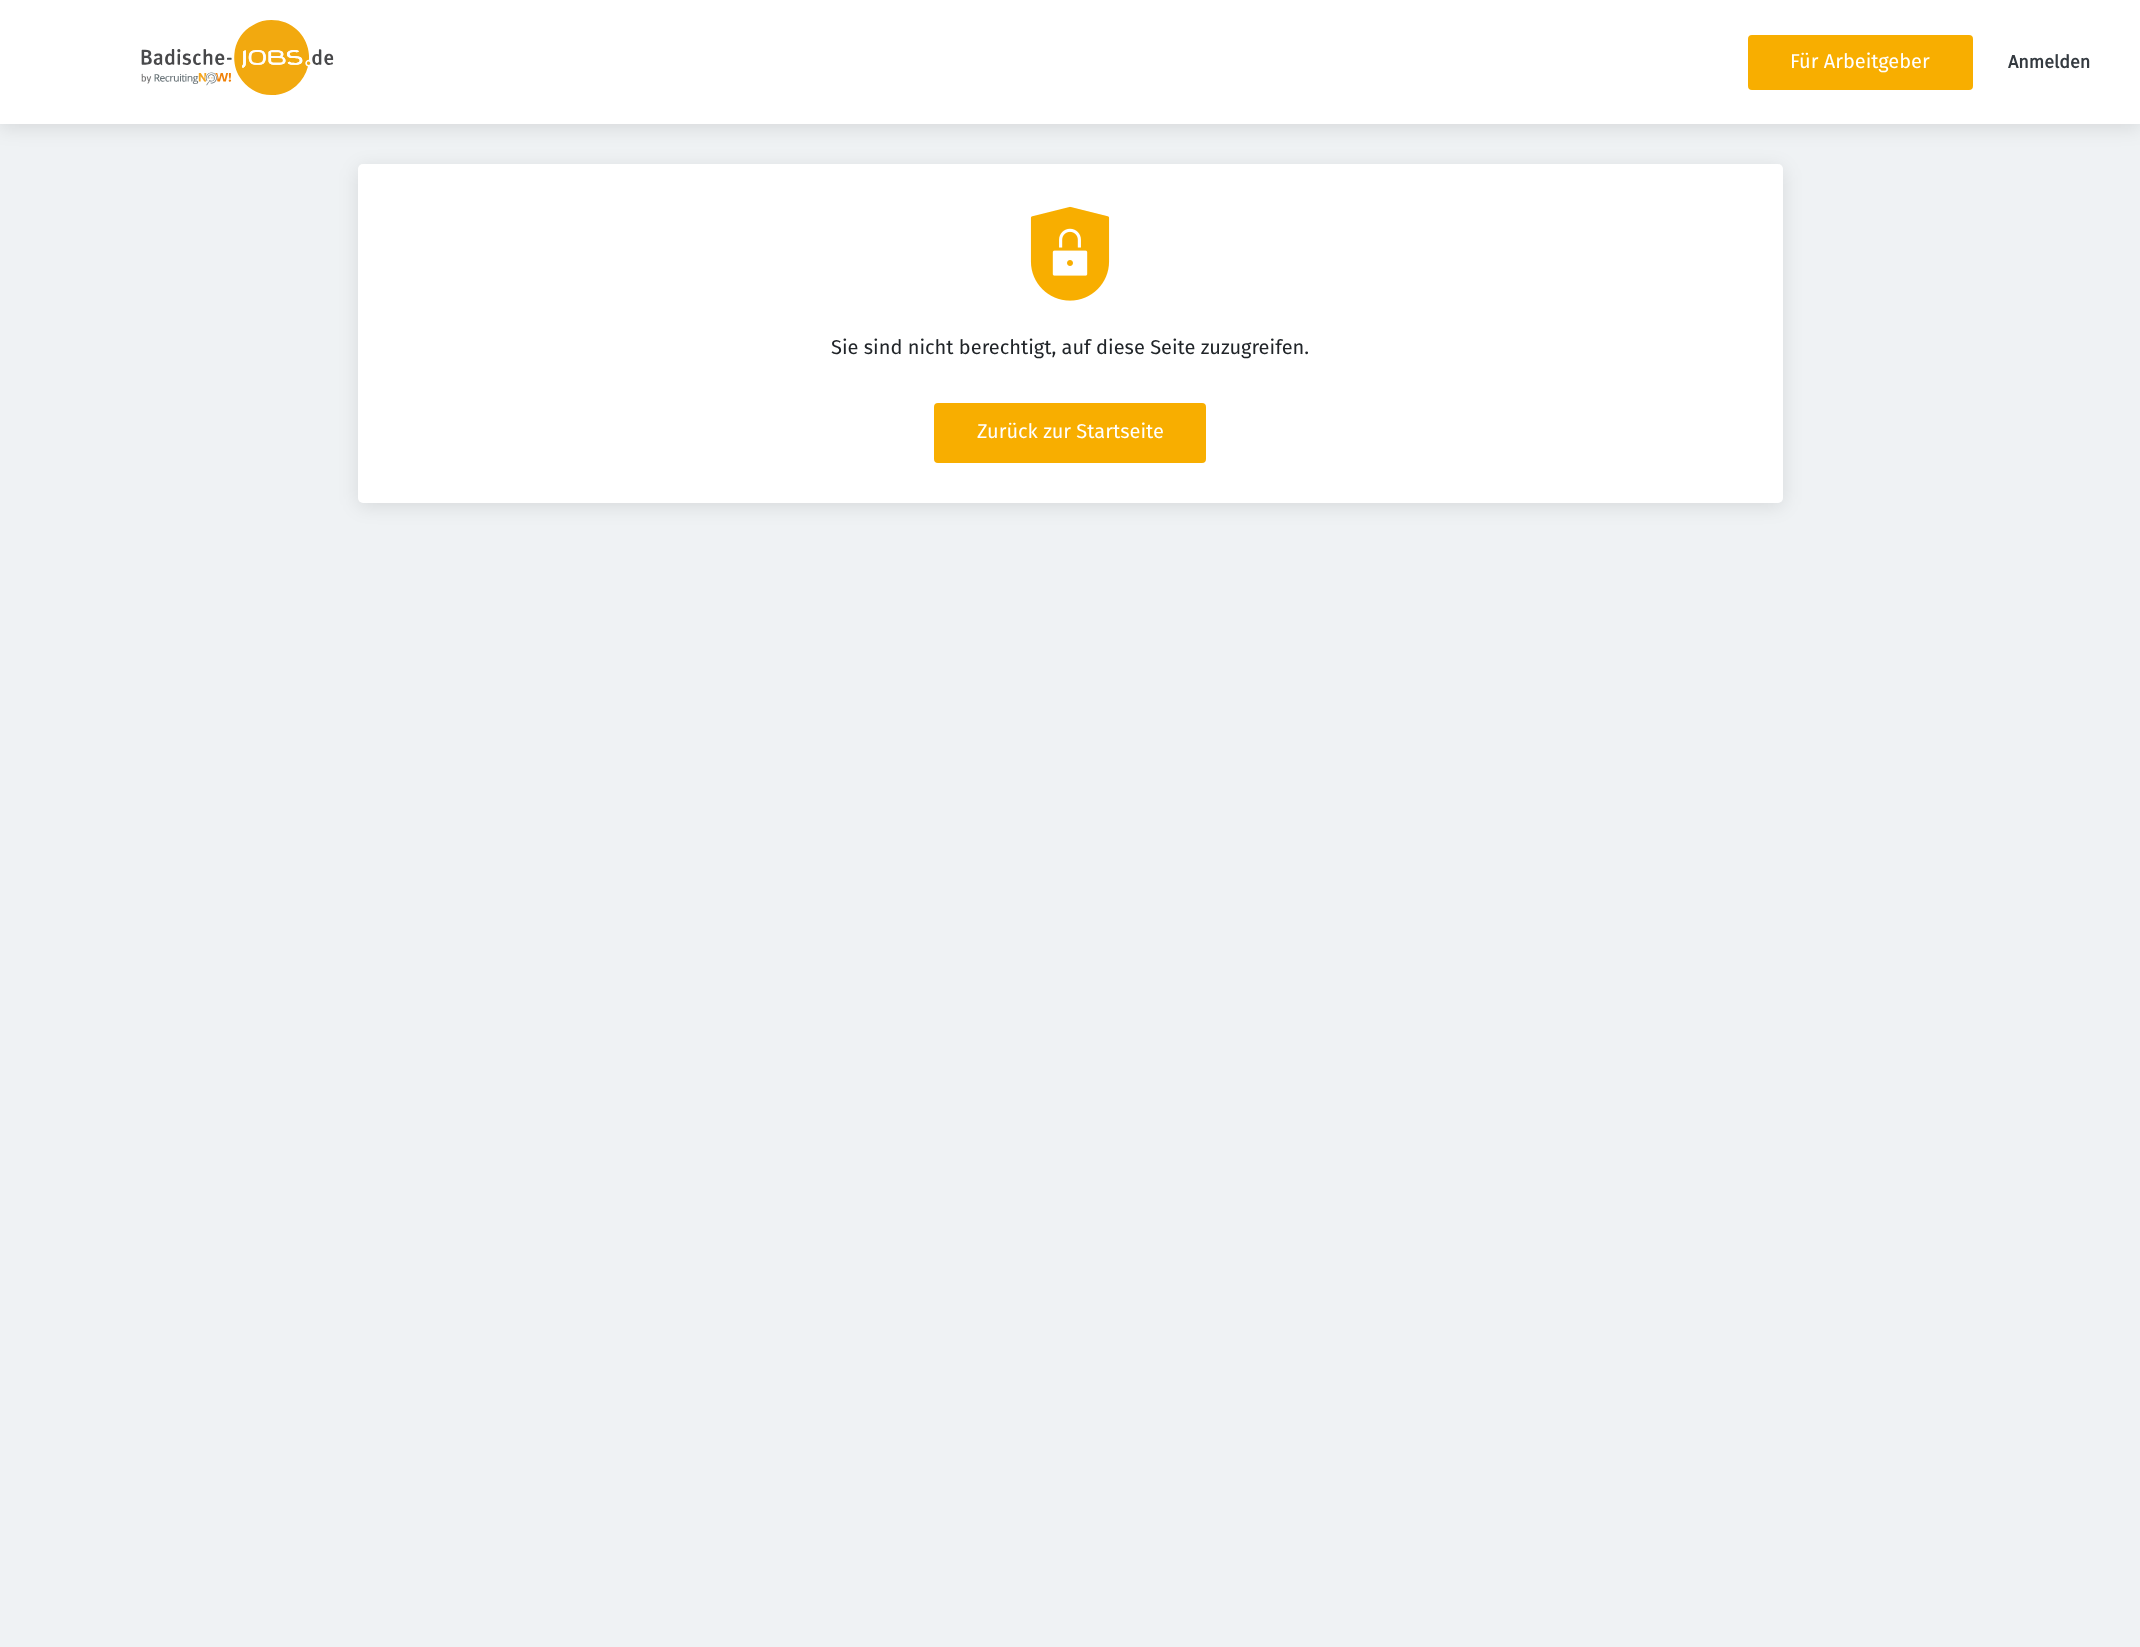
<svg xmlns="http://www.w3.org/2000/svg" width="2140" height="1647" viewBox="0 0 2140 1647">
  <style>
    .t1 { font: 20px Fira Sans; fill: #fff; }
    .t2 { font: bold 18px Fira Sans; fill: #343a40; }
    .t3 { font: 20px Fira Sans; fill: #212529; }
  </style>
  <rect width="100%" height="100%" fill="#eff2f4"/>
  <rect x="0" y="4" width="2140" height="124" fill="#0000001a" filter="blur(9.5px)"/>
  <rect x="0" y="0" width="2140" height="124" fill="#fff"/>
  <image x="141" y="20" width="193" height="75" href="images/1.png"/>
  <rect x="1749.5" y="36.5" width="222" height="52" rx="2.5" fill="#f8ae00" stroke="#f8ae00" stroke-width="3"/>
  <text x="1790" y="68" class="t1">Für Arbeitgeber</text>
  <text x="2008" y="68" class="t2">Anmelden</text>
  <rect x="358" y="168" width="1425" height="338" rx="5" fill="#0000001a" filter="blur(9.5px)"/>
  <rect x="358" y="164" width="1425" height="339" rx="5" fill="#fff"/>
  <image x="1030" y="206" width="80" height="95" href="images/2.png"/>
  <text x="831" y="354" class="t3">Sie sind nicht berechtigt, auf diese Seite zuzugreifen.</text>
  <rect x="935.5" y="404.5" width="269" height="57" rx="2.5" fill="#f8ae00" stroke="#f8ae00" stroke-width="3"/>
  <text x="977" y="438" class="t1">Zurück zur Startseite</text>
</svg>
